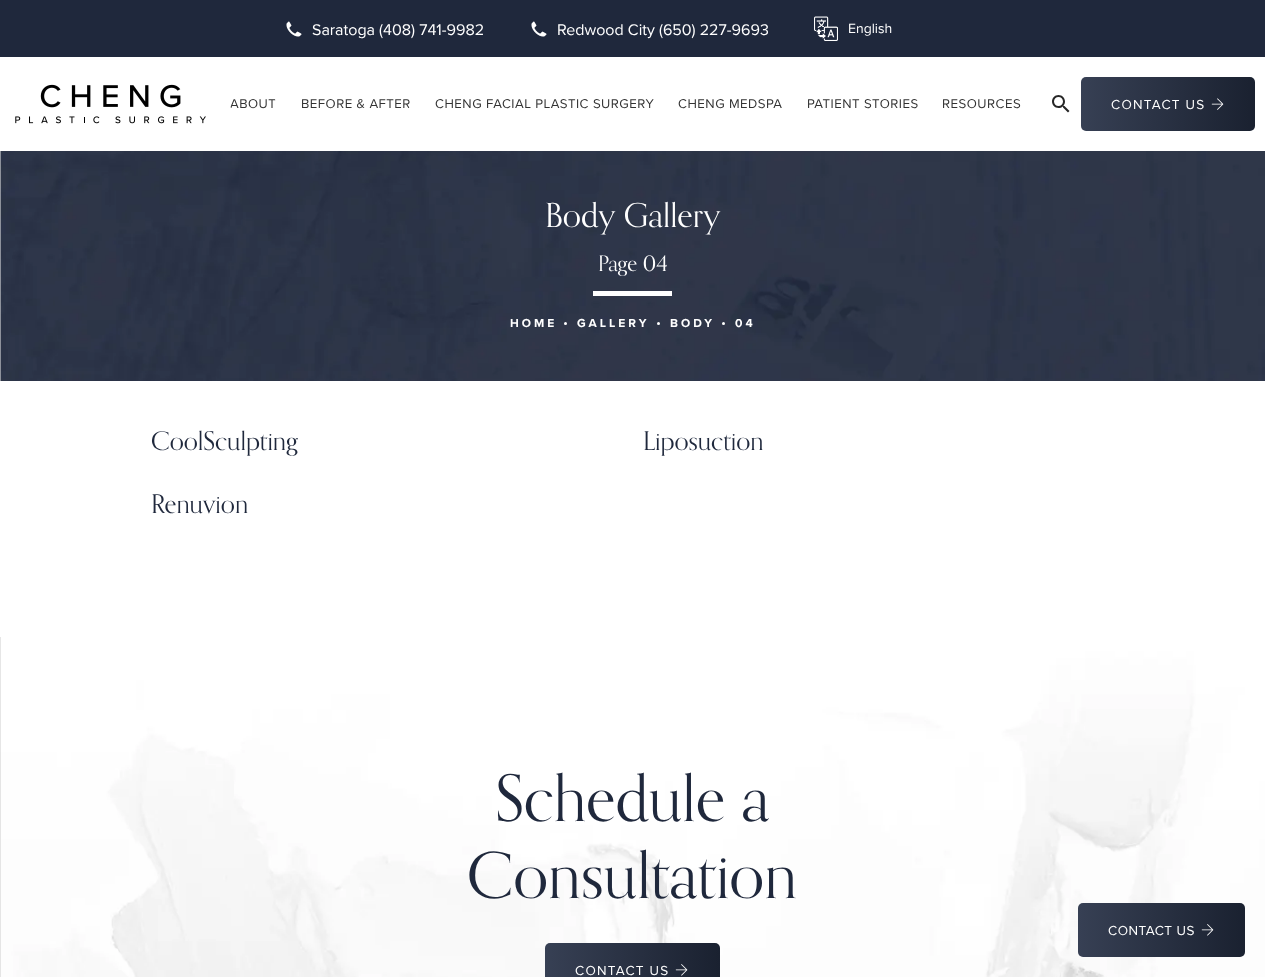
<svg xmlns="http://www.w3.org/2000/svg" width="1265" height="977" viewBox="0 0 1265 977">
  <style>
    .t1 { font: 16px Proxima Nova; fill: #fff; }
    .t2 { font: 14px Proxima Nova; fill: #fff; }
    .t3 { font: 13.2px Proxima Nova; letter-spacing: 0.5px; fill: #333; }
    .t4 { font: 13.5px Proxima Nova; letter-spacing: 1.25px; fill: #fff; }
    .t5 { font: 33.25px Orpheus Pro; fill: #fff; }
    .t6 { font: 21.5px Orpheus Pro; fill: #fff; }
    .t7 { font: bold 12px Proxima Nova; letter-spacing: 3px; fill: #fff; }
    .t8 { font: 25.75px Orpheus Pro; fill: #1f283c; }
    .t9 { font: 63.75px Orpheus Pro; fill: #1f283c; }
    .t10 { font: 13.5px Proxima Nova; letter-spacing: 0.5px; fill: #fff; }
  </style>
  <defs>
    <clipPath id="clip1"><rect x="230" y="97" width="46" height="13" rx="5"/></clipPath>
    <clipPath id="clip2"><rect x="301" y="97" width="109" height="13" rx="5"/></clipPath>
    <clipPath id="clip3"><rect x="807" y="97" width="111" height="13" rx="5"/></clipPath>
    <linearGradient id="g1" gradientUnits="userSpaceOnUse" x1="1255" y1="104" x2="1081" y2="104"><stop offset="0" stop-color="#1a2130"/><stop offset="1" stop-color="#374054"/></linearGradient>
    <linearGradient id="g2" gradientUnits="userSpaceOnUse" x1="720" y1="970" x2="545" y2="970"><stop offset="0" stop-color="#1a2130"/><stop offset="1" stop-color="#374054"/></linearGradient>
    <linearGradient id="g3" gradientUnits="userSpaceOnUse" x1="1245" y1="930" x2="1078" y2="930"><stop offset="0" stop-color="#1a2130"/><stop offset="1" stop-color="#374054"/></linearGradient>
  </defs>
  <rect width="100%" height="100%" fill="#fff"/>
  <rect x="0" y="0" width="1265" height="57" fill="#1f283c"/>
  <image x="286" y="21" width="16" height="16" href="images/1.png"/>
  <text x="312" y="35" class="t1">Saratoga (408) 741-9982</text>
  <image x="531" y="21" width="16" height="16" href="images/1.png"/>
  <text x="557" y="35" class="t1">Redwood City (650) 227-9693</text>
  <image x="814" y="16" width="24" height="25" href="images/2.png"/>
  <text x="848" y="33" class="t2">English</text>
  <image x="15" y="84" width="191" height="40" href="images/3.png"/>
  <g clip-path="url(#clip1)">
    <text x="230" y="108" class="t3">ABOUT</text>
  </g>
  <g clip-path="url(#clip2)">
    <text x="301" y="108" class="t3">BEFORE &amp; AFTER</text>
  </g>
  <text x="435" y="108" class="t3">CHENG FACIAL PLASTIC SURGERY</text>
  <text x="678" y="108" class="t3">CHENG MEDSPA</text>
  <g clip-path="url(#clip3)">
    <text x="807" y="108" class="t3">PATIENT STORIES</text>
  </g>
  <text x="942" y="108" class="t3">RESOURCES</text>
  <image x="1052" y="95" width="18" height="18" href="images/4.png"/>
  <rect x="1081" y="77" width="174" height="54" rx="5" fill="url(#g1)"/>
  <text x="1111" y="109" class="t4">CONTACT US</text>
  <image x="1211" y="98" width="13" height="12" href="images/5.png"/>
  <rect x="0" y="151" width="1" height="230" fill="#f1f1f1"/>
  <image x="0" y="151" width="1265" height="230" href="images/6.png"/>
  <text x="545" y="227" class="t5">Body Gallery</text>
  <text x="598" y="271" class="t6">Page 04</text>
  <rect x="593" y="291" width="79" height="5" fill="#fff"/>
  <text x="510" y="327" class="t7">HOME</text>
  <circle cx="565.5" cy="323.5" r="1.5" fill="#fff"/>
  <text x="577" y="327" class="t7">GALLERY</text>
  <circle cx="658.5" cy="323.5" r="1.5" fill="#fff"/>
  <text x="670" y="327" class="t7">BODY</text>
  <circle cx="723.5" cy="323.5" r="1.5" fill="#fff"/>
  <text x="735" y="327" class="t7">04</text>
  <text x="151" y="450" class="t8">CoolSculpting</text>
  <text x="643" y="450" class="t8">Liposuction</text>
  <text x="151" y="513" class="t8">Renuvion</text>
  <rect x="0" y="637" width="1" height="340" fill="#ccc"/>
  <image x="0" y="637" width="1265" height="340" href="images/7.png"/>
  <text x="495" y="821" class="t9">Schedule a</text>
  <text x="467" y="898" class="t9">Consultation</text>
  <rect x="545" y="943" width="175" height="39" rx="5" fill="url(#g2)"/>
  <text x="575" y="975" class="t4">CONTACT US</text>
  <image x="675" y="964" width="13" height="12" href="images/8.png"/>
  <rect x="1078" y="903" width="167" height="54" rx="5" fill="url(#g3)"/>
  <text x="1108" y="935" class="t10">CONTACT US</text>
  <image x="1201" y="924" width="13" height="12" href="images/9.png"/>
</svg>
